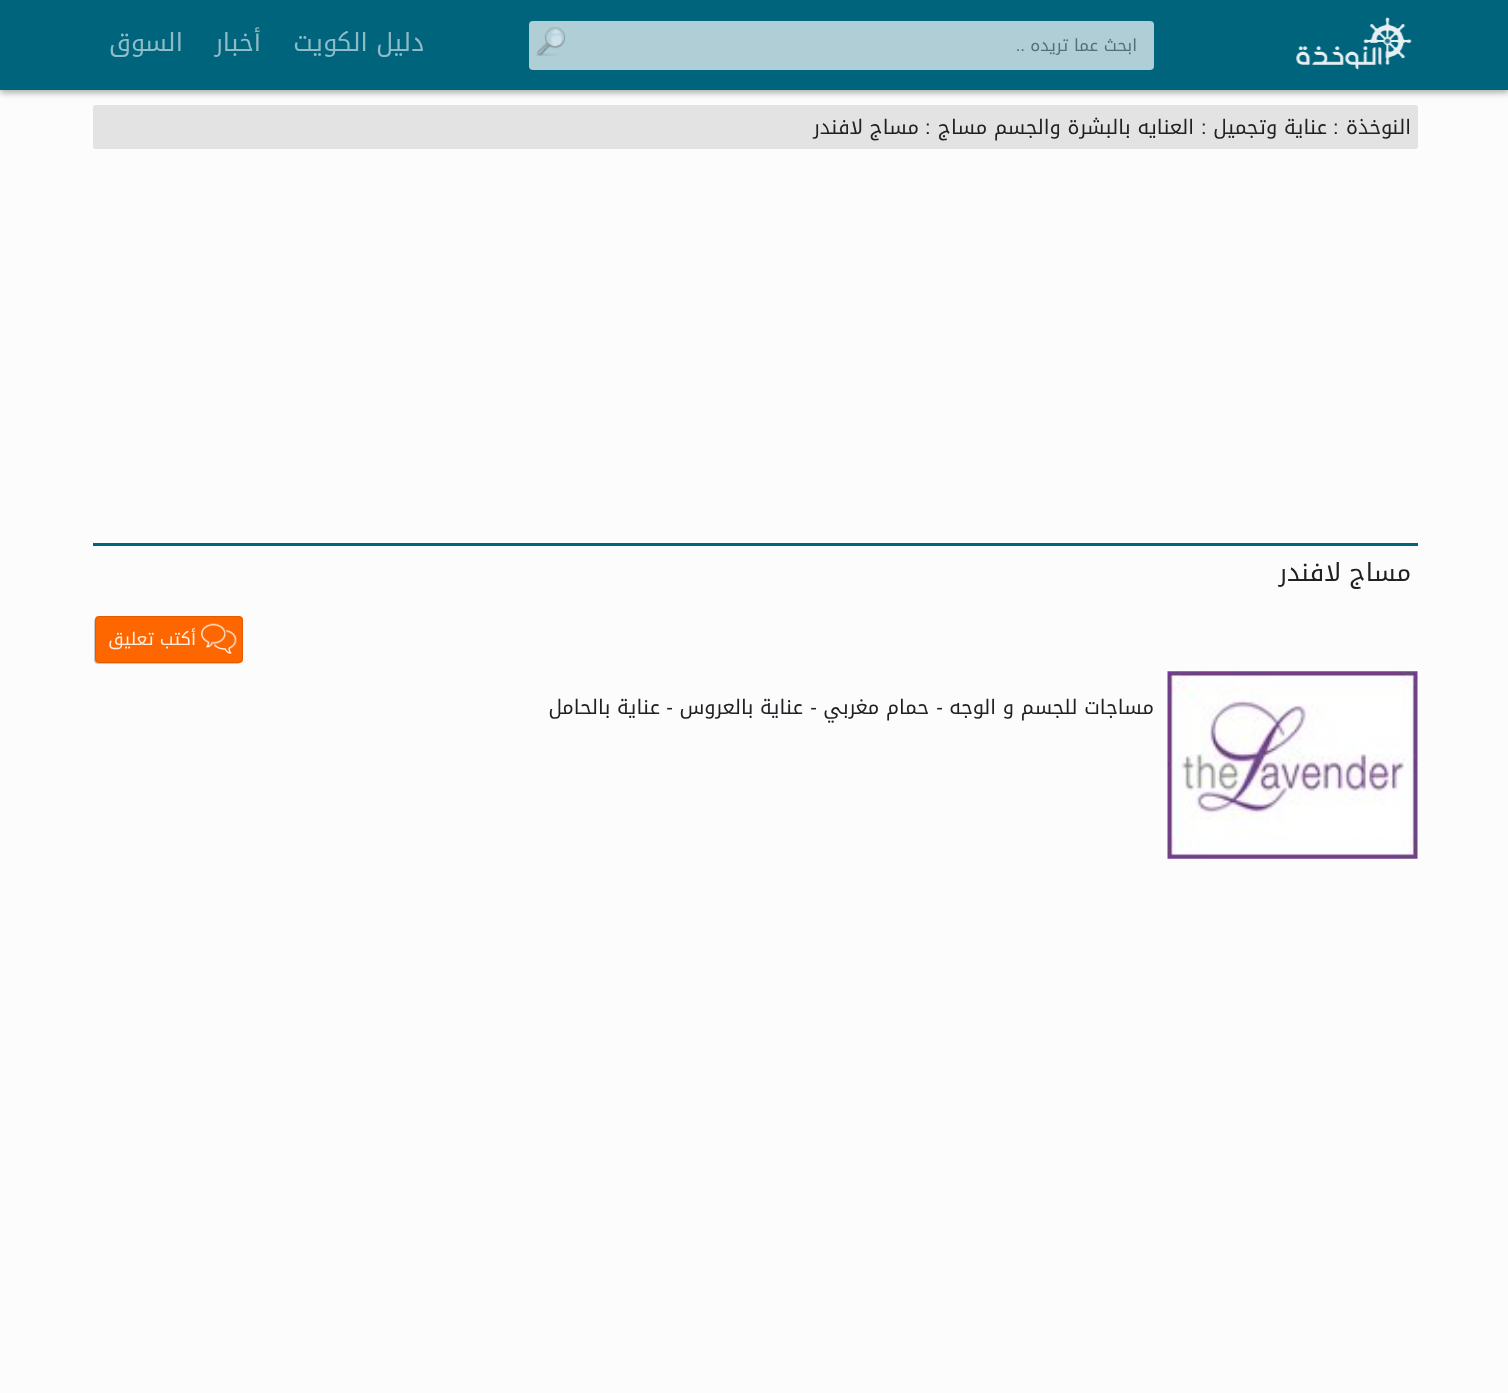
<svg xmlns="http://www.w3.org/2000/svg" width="1508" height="1393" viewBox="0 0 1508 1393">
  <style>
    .t1 { font: 16.75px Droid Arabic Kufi; direction: rtl; fill: #527077; }
    .t2 { font: 16.75px Liberation Sans; direction: rtl; fill: #527077; }
    .t3 { font: 25px Droid Arabic Kufi; direction: rtl; fill: #8fbbc6; }
    .t4 { font: 20px Droid Arabic Kufi; direction: rtl; fill: #202124; }
    .t5 { font: 20px Liberation Sans; fill: #202124; }
    .t6 { font: 25px Droid Arabic Kufi; direction: rtl; fill: #202124; }
    .t7 { font: 17.5px Droid Arabic Kufi; direction: rtl; fill: #fff0e6; }
    .t8 { font: 20px Liberation Sans; direction: rtl; fill: #202124; }
  </style>
  <rect width="100%" height="100%" fill="#fcfcfc"/>
  <rect x="0" y="3" width="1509" height="90" fill="#0000004d" filter="blur(3px)"/>
  <rect x="0" y="0" width="1508" height="90" fill="#00647d"/>
  <image x="1296" y="17" width="116" height="53" href="images/1.png"/>
  <rect x="529" y="21" width="625" height="49" rx="4" fill="#b0ced6"/>
  <text x="1137" y="51" class="t1">ابحث عما تريده</text>
  <text x="1025" y="51" class="t2">..</text>
  <image x="536" y="27" width="30" height="29" href="images/2.png"/>
  <text x="424" y="51" class="t3">دليل الكويت</text>
  <text x="261" y="51" class="t3">أخبار</text>
  <text x="183" y="51" class="t3">السوق</text>
  <rect x="93" y="105" width="1325" height="44" rx="2.5" fill="#e3e3e3"/>
  <text x="1411" y="134" class="t4">النوخذة</text>
  <text x="1333" y="134" class="t5">:</text>
  <text x="1327" y="134" class="t4">عناية وتجميل</text>
  <text x="1201" y="134" class="t5">:</text>
  <text x="1194" y="134" class="t4">العنايه بالبشرة والجسم مساج</text>
  <text x="925" y="134" class="t5">:</text>
  <text x="919" y="134" class="t4">مساج لافندر</text>
  <rect x="93" y="543" width="1325" height="3" fill="#00647d"/>
  <text x="1411" y="581" class="t6">مساج لافندر</text>
  <rect x="94" y="618" width="147" height="46" rx="4" fill="#00000033" filter="blur(0.5px)"/>
  <rect x="95" y="616" width="148" height="47" rx="4" fill="#fe6600"/>
  <image x="201" y="623" width="36" height="31" href="images/3.png"/>
  <rect x="95.5" y="616.5" width="147" height="46" rx="3.5" fill="none" stroke="#0000001a"/>
  <text x="196" y="645" class="t7">أكتب تعليق</text>
  <image x="1167" y="671" width="251" height="188" href="images/4.png"/>
  <text x="1154" y="714" class="t4">مساجات للجسم و الوجه</text>
  <text x="943" y="714" class="t8">-</text>
  <text x="929" y="714" class="t4">حمام مغربي</text>
  <text x="817" y="714" class="t8">-</text>
  <text x="803" y="714" class="t4">عناية بالعروس</text>
  <text x="673" y="714" class="t8">-</text>
  <text x="660" y="714" class="t4">عناية بالحامل</text>
</svg>
